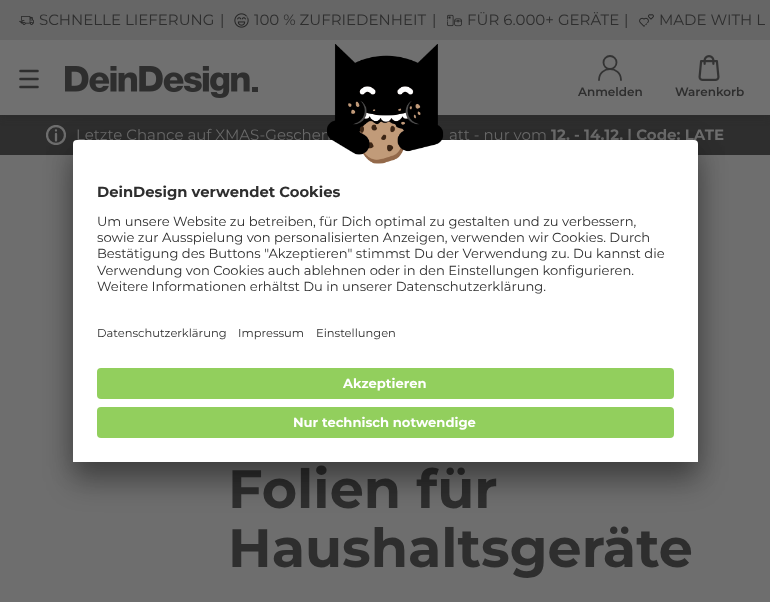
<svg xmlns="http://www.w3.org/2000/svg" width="770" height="602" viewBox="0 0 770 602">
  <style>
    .t1 { font: 15px Montserrat; fill: #2e2e2e; }
    .t2 { font: 600 12px Montserrat; fill: #2e2e2e; }
    .t3 { font: 15px Montserrat; fill: #6e6e6e; }
    .t4 { font: bold 15px Montserrat; fill: #6e6e6e; }
    .t5 { font: bold 54px Montserrat; fill: #2e2e2e; }
    .t6 { font: bold 14.75px Montserrat; fill: #2e2e2e; }
    .t7 { font: 13.1px Montserrat; fill: #2e2e2e; }
    .t8 { font: 11.5px Montserrat; fill: #2e2e2e; }
    .t9 { font: bold 13.1px Montserrat; fill: #fff; }
  </style>
  <defs>
    <clipPath id="clip1"><rect x="46" y="125" width="20" height="20"/></clipPath>
  </defs>
  <rect width="100%" height="100%" fill="#6e6e6e"/>
  <rect x="0" y="115" width="770" height="40" fill="#2e2e2e"/>
  <g clip-path="url(#clip1)">
    <circle cx="56" cy="135" r="9" fill="none" stroke="#6e6e6e" stroke-width="2.3"/>
  </g>
  <rect x="0" y="44" width="770" height="75" fill="#24242433" filter="blur(3px)"/>
  <rect x="0" y="0" width="770" height="40" fill="#666"/>
  <image x="19" y="16" width="15" height="9" href="images/1.png"/>
  <text x="39" y="25" class="t1">SCHNELLE LIEFERUNG</text>
  <text x="220" y="25" class="t1">|</text>
  <image x="234" y="13" width="15" height="15" href="images/2.png"/>
  <text x="254" y="25" class="t1">100 % ZUFRIEDENHEIT</text>
  <text x="432" y="25" class="t1">|</text>
  <image x="447" y="14" width="15" height="13" href="images/3.png"/>
  <text x="467" y="25" class="t1">FÜR 6.000+ GERÄTE</text>
  <text x="624" y="25" class="t1">|</text>
  <image x="639" y="14" width="15" height="13" href="images/4.png"/>
  <text x="659" y="25" class="t1">MADE WITH L</text>
  <rect x="0" y="40" width="770" height="75" fill="#707070"/>
  <path d="M20.5 71H37.5M20.5 79H37.5M20.5 87H37.5" fill="none" stroke="#2e2e2e" stroke-width="2.6" stroke-linecap="round"/>
  <image x="65" y="66" width="193" height="32" href="images/5.png"/>
  <circle cx="610" cy="62.5" r="6.5" fill="none" stroke="#333" stroke-width="1.8"/>
  <path d="M599 80C599 65.5 621 65.5 621 80" fill="none" stroke="#333" stroke-width="1.8" stroke-linecap="round"/>
  <text x="578" y="96" class="t2">Anmelden</text>
  <image x="698" y="55" width="22" height="26" href="images/6.png"/>
  <text x="675" y="96" class="t2">Warenkorb</text>
  <path d="M56 130.5H56M56 134V140.5" fill="none" stroke="#6e6e6e" stroke-width="2.3" stroke-linecap="round"/>
  <text x="76" y="140" class="t3">Letzte Chance auf XMAS-Geschen</text>
  <text x="449" y="140" class="t3">att - nur vom</text>
  <text x="551" y="140" class="t4">12. - 14.12. | Code: LATE</text>
  <text x="228" y="508" class="t5">Folien für</text>
  <text x="228" y="567" class="t5">Haushaltsgeräte</text>
  <rect x="73" y="160" width="625" height="322" rx="4" fill="#0000004d" filter="blur(14px)"/>
  <rect x="73" y="145" width="625" height="322" rx="4" fill="#00000038" filter="blur(13px)"/>
  <rect x="73" y="140" width="625" height="322" rx="4" fill="#fff"/>
  <image x="327" y="44" width="117" height="120" href="images/7.png"/>
  <text x="97" y="197" class="t6">DeinDesign verwendet Cookies</text>
  <text x="97" y="226" class="t7">Um unsere Website zu betreiben, für Dich optimal zu gestalten und zu verbessern,</text>
  <text x="97" y="242" class="t7">sowie zur Ausspielung von personalisierten Anzeigen, verwenden wir Cookies. Durch</text>
  <text x="97" y="258" class="t7">Bestätigung des Buttons "Akzeptieren" stimmst Du der Verwendung zu. Du kannst die</text>
  <text x="97" y="275" class="t7">Verwendung von Cookies auch ablehnen oder in den Einstellungen konfigurieren.</text>
  <text x="97" y="291" class="t7">Weitere Informationen erhältst Du in unserer Datenschutzerklärung.</text>
  <text x="97" y="337" class="t8">Datenschutzerklärung</text>
  <text x="238" y="337" class="t8">Impressum</text>
  <text x="316" y="337" class="t8">Einstellungen</text>
  <rect x="73" y="458" width="625" height="4" fill="#fff"/>
  <rect x="97" y="368" width="577" height="31" rx="4" fill="#92cf5d"/>
  <text x="343" y="388" class="t9">Akzeptieren</text>
  <rect x="97" y="407" width="577" height="31" rx="4" fill="#92cf5d"/>
  <text x="293" y="427" class="t9">Nur technisch notwendige</text>
</svg>
